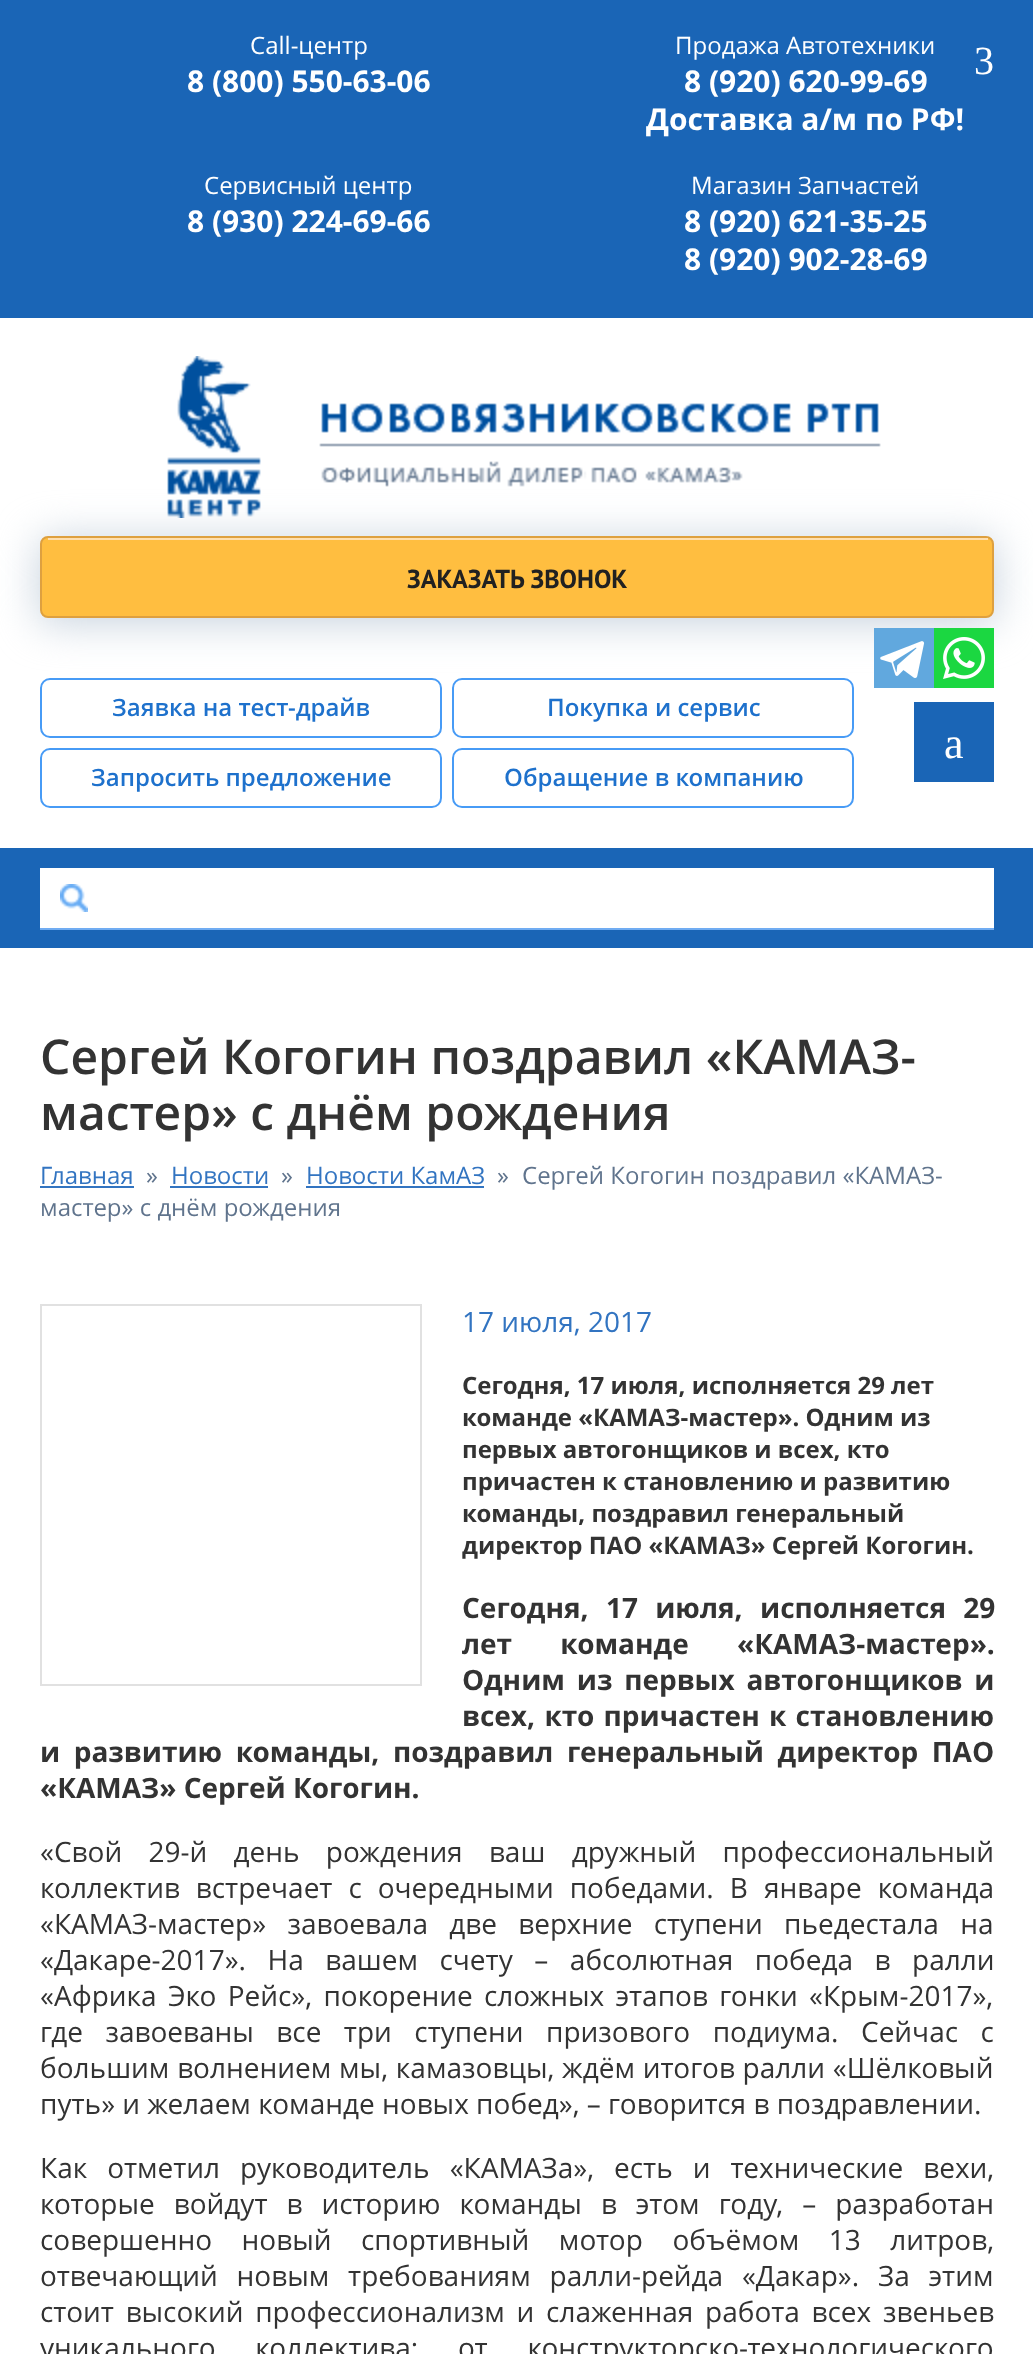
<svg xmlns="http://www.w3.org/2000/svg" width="1033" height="2354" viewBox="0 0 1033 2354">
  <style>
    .t1 { font: 24px Open Sans; fill: #fff; }
    .t2 { font: bold 30px Open Sans; fill: #fff; }
    .t3 { font: 40px Liberation Serif; fill: #fff; }
    .t4 { font: bold 26px PT Sans; fill: #212121; }
    .t5 { font: 600 24px Open Sans; fill: #1e71cc; }
    .t6 { font: 44px Liberation Serif; fill: #fff; }
    .t7 { font: 600 48px Open Sans; fill: #333; }
    .t8 { font: 24px Open Sans; fill: #3274c1; }
    .t9 { font: 24px Open Sans; fill: #60748d; }
    .t10 { font: 28px Open Sans; fill: #3274c1; }
    .t11 { font: bold 24px Open Sans; fill: #333; }
    .t12 { font: bold 28px Open Sans; fill: #333; }
    .t13 { font: 28px Open Sans; fill: #333; }
  </style>
  <rect width="100%" height="100%" fill="#fff"/>
  <rect x="0" y="0" width="1033" height="318" fill="#1a65b6"/>
  <text x="250" y="54" class="t1">Call-центр</text>
  <text x="187" y="92" class="t2">8 (800) 550-63-06</text>
  <text x="675" y="54" class="t1">Продажа Автотехники</text>
  <text x="684" y="92" class="t2">8 (920) 620-99-69</text>
  <text x="646" y="130" class="t2">Доставка а/м по РФ!</text>
  <text x="204" y="194" class="t1">Сервисный центр</text>
  <text x="187" y="232" class="t2">8 (930) 224-69-66</text>
  <text x="691" y="194" class="t1">Магазин Запчастей</text>
  <text x="684" y="232" class="t2">8 (920) 621-35-25</text>
  <text x="684" y="270" class="t2">8 (920) 902-28-69</text>
  <text x="974" y="74" class="t3">3</text>
  <image x="167" y="356" width="714" height="162" href="images/1.png"/>
  <rect x="38" y="538" width="958" height="86" rx="10" fill="#c9d4df" filter="blur(20px)"/>
  <rect x="41" y="537" width="952" height="80" rx="7" fill="#ffbe40" stroke="#dea03f" stroke-width="2"/>
  <rect x="48" y="538" width="940" height="2" fill="#ffdfae"/>
  <text x="407" y="588" class="t4">ЗАКАЗАТЬ ЗВОНОК</text>
  <image x="874" y="628" width="60" height="60" href="images/2.png"/>
  <image x="934" y="628" width="60" height="60" href="images/3.png"/>
  <rect x="41" y="679" width="400" height="58" rx="9" fill="none" stroke="#479bf6" stroke-width="2"/>
  <text x="112" y="716" class="t5">Заявка на тест-драйв</text>
  <rect x="453" y="679" width="400" height="58" rx="9" fill="none" stroke="#479bf6" stroke-width="2"/>
  <text x="547" y="716" class="t5">Покупка и сервис</text>
  <rect x="41" y="749" width="400" height="58" rx="9" fill="none" stroke="#479bf6" stroke-width="2"/>
  <text x="91" y="786" class="t5">Запросить предложение</text>
  <rect x="453" y="749" width="400" height="58" rx="9" fill="none" stroke="#479bf6" stroke-width="2"/>
  <text x="504" y="786" class="t5">Обращение в компанию</text>
  <rect x="0" y="848" width="1033" height="100" fill="#1a65b6"/>
  <rect x="914" y="702" width="80" height="80" fill="#1a65b6"/>
  <text x="944" y="758" class="t6">a</text>
  <rect x="40" y="868" width="954" height="60" fill="#fff"/>
  <rect x="40" y="928" width="954" height="2" fill="#70acf2"/>
  <image x="60" y="884" width="28" height="28" href="images/4.png"/>
  <text x="40" y="1074" class="t7">Сергей Когогин поздравил «КАМАЗ-</text>
  <text x="40" y="1130" class="t7">мастер» с днём рождения</text>
  <text x="40" y="1184" class="t8">Главная</text>
  <rect x="40" y="1186" width="94" height="2" fill="#3274c1"/>
  <text x="146" y="1184" class="t9">»</text>
  <text x="171" y="1184" class="t8">Новости</text>
  <rect x="170" y="1186" width="98" height="2" fill="#3274c1"/>
  <text x="281" y="1184" class="t9">»</text>
  <text x="306" y="1184" class="t8">Новости КамАЗ</text>
  <rect x="306" y="1186" width="178" height="2" fill="#3274c1"/>
  <text x="497" y="1184" class="t9">»</text>
  <text x="522" y="1184" class="t9">Сергей Когогин поздравил «КАМАЗ-</text>
  <text x="40" y="1216" class="t9">мастер» с днём рождения</text>
  <rect x="41" y="1305" width="380" height="380" fill="none" stroke="#e1e1e1" stroke-width="2"/>
  <text x="462" y="1332" class="t10">17 июля, 2017</text>
  <text x="462" y="1394" class="t11">Сегодня, 17 июля, исполняется 29 лет</text>
  <text x="462" y="1426" class="t11">команде «КАМАЗ-мастер». Одним из</text>
  <text x="462" y="1458" class="t11">первых автогонщиков и всех, кто</text>
  <text x="462" y="1490" class="t11">причастен к становлению и развитию</text>
  <text x="462" y="1522" class="t11">команды, поздравил генеральный</text>
  <text x="462" y="1554" class="t11">директор ПАО «КАМАЗ» Сергей Когогин.</text>
  <text x="462" y="1618" word-spacing="10" class="t12">Сегодня, 17 июля, исполняется 29</text>
  <text x="462" y="1654" word-spacing="41" class="t12">лет команде «КАМАЗ-мастер».</text>
  <text x="462" y="1690" word-spacing="4.5" class="t12">Одним из первых автогонщиков и</text>
  <text x="462" y="1726" word-spacing="2" class="t12">всех, кто причастен к становлению</text>
  <text x="40" y="1762" word-spacing="6.25" class="t12">и развитию команды, поздравил генеральный директор ПАО</text>
  <text x="40" y="1798" class="t12">«КАМАЗ» Сергей Когогин.</text>
  <text x="40" y="1862" word-spacing="19" class="t13">«Свой 29-й день рождения ваш дружный профессиональный</text>
  <text x="40" y="1898" word-spacing="8.75" class="t13">коллектив встречает с очередными победами. В январе команда</text>
  <text x="40" y="1934" word-spacing="14" class="t13">«КАМАЗ-мастер» завоевала две верхние ступени пьедестала на</text>
  <text x="40" y="1970" word-spacing="14.25" class="t13">«Дакаре-2017». На вашем счету – абсолютная победа в ралли</text>
  <text x="40" y="2006" word-spacing="4" class="t13">«Африка Эко Рейс», покорение сложных этапов гонки «Крым-2017»,</text>
  <text x="40" y="2042" word-spacing="15.25" class="t13">где завоеваны все три ступени призового подиума. Сейчас с</text>
  <text x="40" y="2078" word-spacing="0.5" class="t13">большим волнением мы, камазовцы, ждём итогов ралли «Шёлковый</text>
  <text x="40" y="2114" class="t13">путь» и желаем команде новых побед», – говорится в поздравлении.</text>
  <text x="40" y="2178" word-spacing="12.75" class="t13">Как отметил руководитель «КАМАЗа», есть и технические вехи,</text>
  <text x="40" y="2214" word-spacing="11.75" class="t13">которые войдут в историю команды в этом году, – разработан</text>
  <text x="40" y="2250" word-spacing="22.25" class="t13">совершенно новый спортивный мотор объёмом 13 литров,</text>
  <text x="40" y="2286" word-spacing="11.5" class="t13">отвечающий новым требованиям ралли-рейда «Дакар». За этим</text>
  <text x="40" y="2322" word-spacing="4.5" class="t13">стоит высокий профессионализм и слаженная работа всех звеньев</text>
  <text x="40" y="2358" word-spacing="32.5" class="t13">уникального коллектива: от конструкторско-технологического</text>
</svg>
